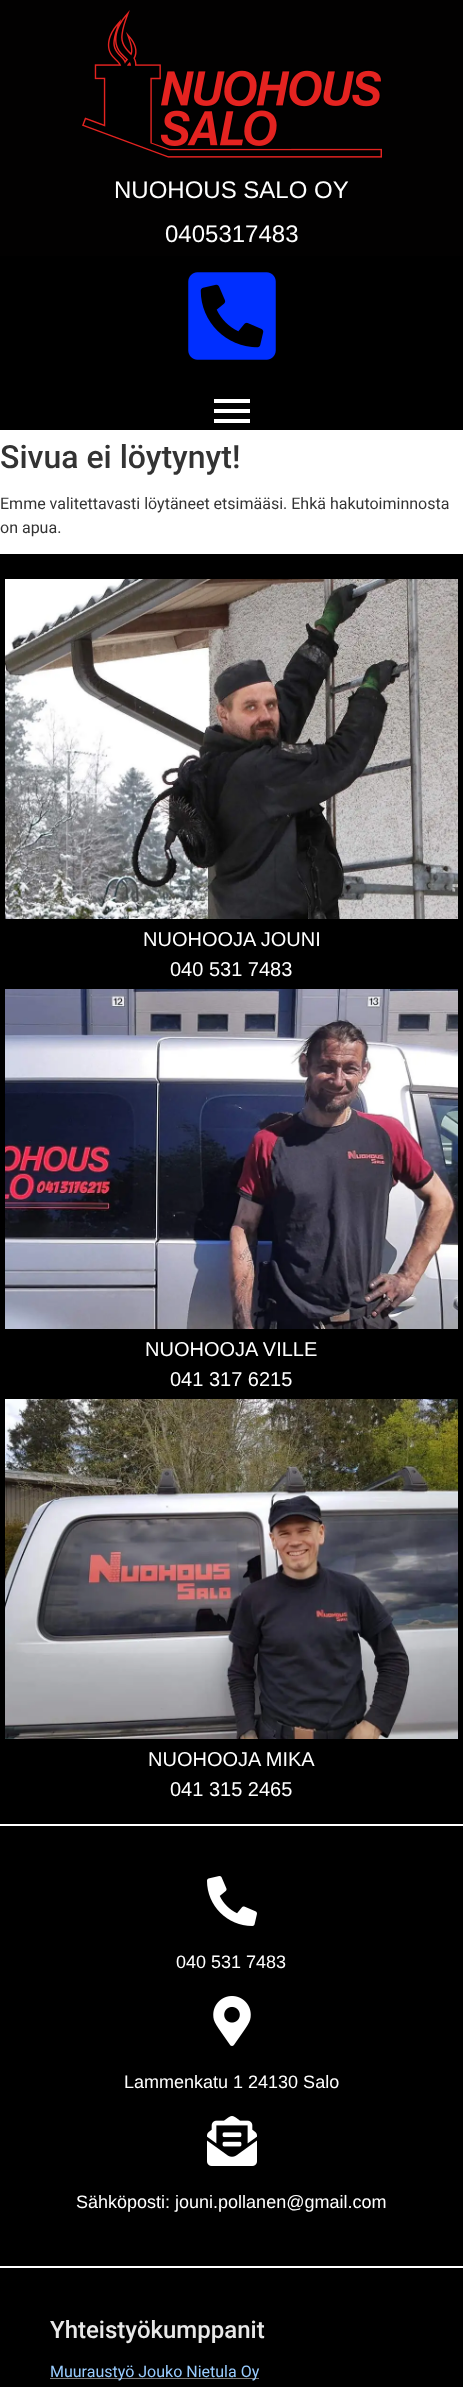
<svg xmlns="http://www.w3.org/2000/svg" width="463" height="2387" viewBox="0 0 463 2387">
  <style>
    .t1 { font: 24px Liberation Sans; fill: #fff; }
    .t2 { font: 500 32px Roboto; fill: #333; }
    .t3 { font: 16px Roboto; fill: #333; }
    .t4 { font: 20px Liberation Sans; fill: #fff; }
    .t5 { font: 18px Liberation Sans; fill: #fff; }
    .t6 { font: 500 24px Roboto; fill: #e8e8e8; }
    .t7 { font: 16px Roboto; fill: #9cf; }
  </style>
  <rect width="100%" height="100%" fill="#fff"/>
  <rect x="0" y="0" width="463" height="256" fill="#020101"/>
  <image x="82" y="10" width="300" height="148" href="images/1.png"/>
  <text x="114" y="198" class="t1">NUOHOUS SALO OY</text>
  <text x="165" y="242" class="t1">0405317483</text>
  <rect x="0" y="256" width="463" height="174" fill="#000"/>
  <image x="188" y="272" width="88" height="88" href="images/2.png"/>
  <rect x="214" y="399" width="36" height="4" fill="#fff"/>
  <rect x="214" y="409" width="36" height="4" fill="#fff"/>
  <rect x="214" y="419" width="36" height="4" fill="#fff"/>
  <text x="0" y="468" class="t2">Sivua ei löytynyt!</text>
  <text x="0" y="509" class="t3">Emme valitettavasti löytäneet etsimääsi. Ehkä hakutoiminnosta</text>
  <text x="0" y="533" class="t3">on apua.</text>
  <rect x="0" y="554" width="463" height="1270" fill="#000"/>
  <image x="5" y="579" width="453" height="340" href="images/3.png"/>
  <text x="143" y="946" class="t4">NUOHOOJA JOUNI</text>
  <text x="170" y="976" class="t4">040 531 7483</text>
  <image x="5" y="989" width="453" height="340" href="images/4.png"/>
  <text x="145" y="1356" class="t4">NUOHOOJA VILLE</text>
  <text x="170" y="1386" class="t4">041 317 6215</text>
  <image x="5" y="1399" width="453" height="340" href="images/5.png"/>
  <text x="148" y="1766" class="t4">NUOHOOJA MIKA</text>
  <text x="170" y="1796" class="t4">041 315 2465</text>
  <rect x="0" y="1826" width="463" height="440" fill="#000"/>
  <image x="207" y="1876" width="50" height="50" href="images/6.png"/>
  <text x="176" y="1968" class="t5">040 531 7483</text>
  <image x="213" y="1996" width="38" height="50" href="images/7.png"/>
  <text x="124" y="2088" class="t5">Lammenkatu 1 24130 Salo</text>
  <image x="207" y="2116" width="50" height="50" href="images/8.png"/>
  <text x="76" y="2208" class="t5">Sähköposti: jouni.pollanen@gmail.com</text>
  <rect x="0" y="2268" width="463" height="119" fill="#000"/>
  <text x="50" y="2338" class="t6">Yhteistyökumppanit</text>
  <rect x="50" y="2378" width="209" height="1" fill="#7a7a7a"/>
  <text x="50" y="2377" class="t7">Muuraustyö Jouko Nietula Oy</text>
</svg>
